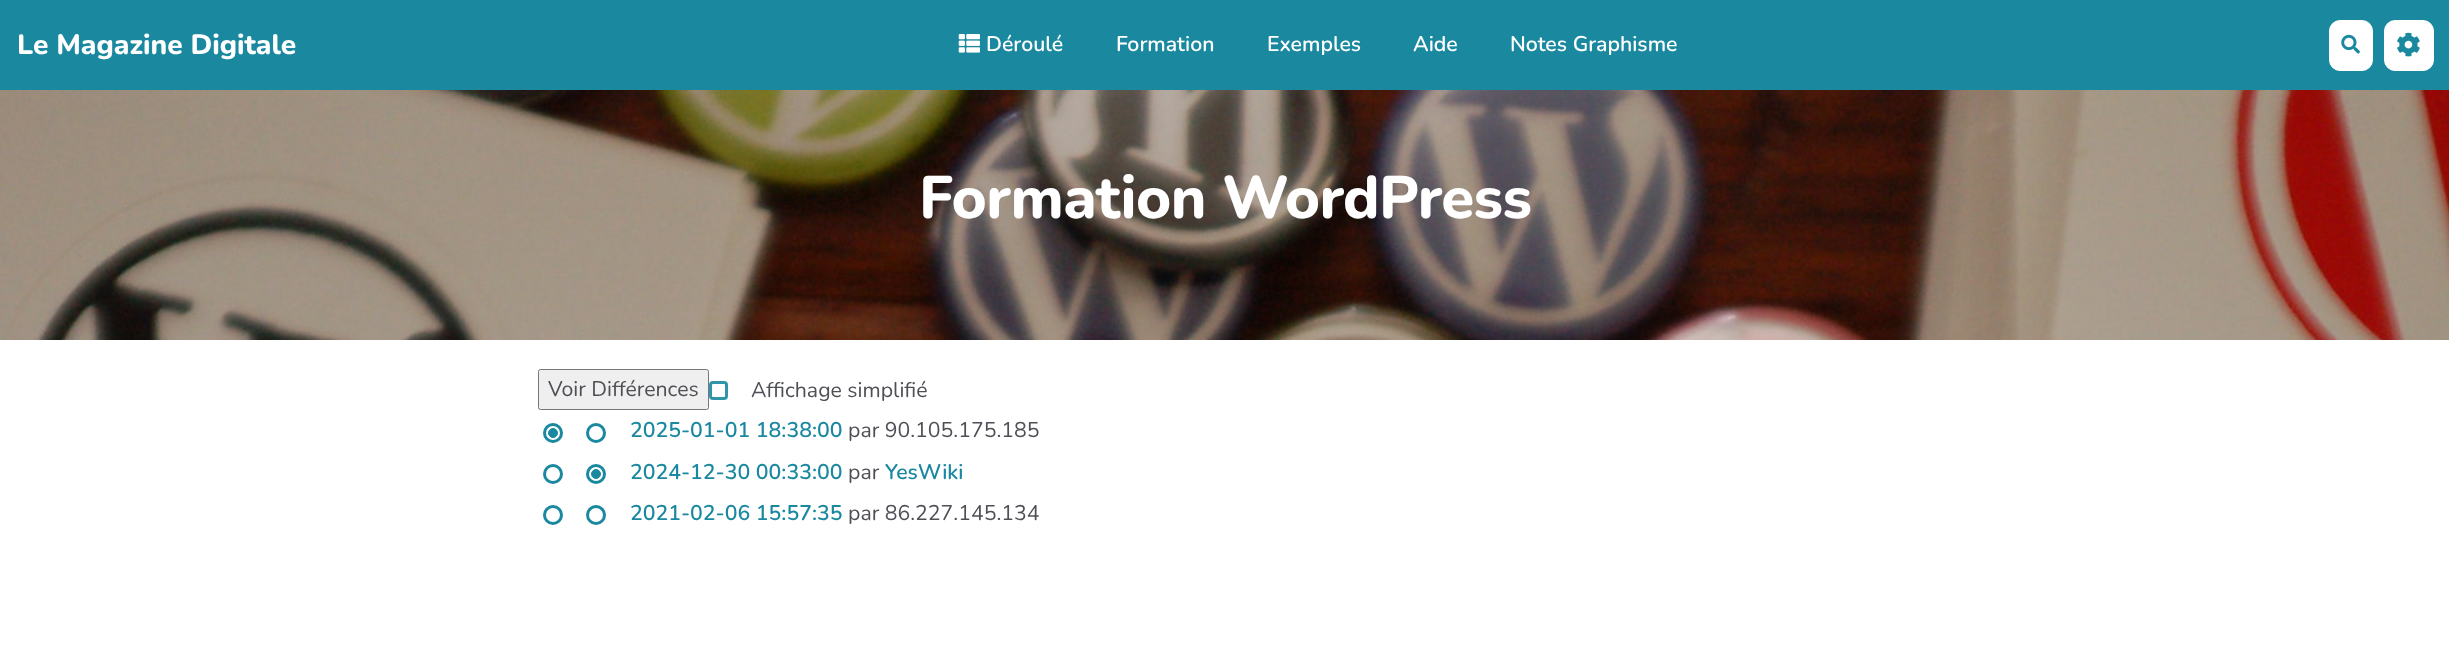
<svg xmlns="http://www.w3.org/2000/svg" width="2449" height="651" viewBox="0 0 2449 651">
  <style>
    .t1 { font: 800 28.1px Nunito; fill: #fff; }
    .t2 { font: 600 21.25px Nunito; fill: #fff; }
    .t3 { font: 800 60px Nunito; letter-spacing: -0.6px; fill: #fff; }
    .t4 { font: 21.25px Nunito; fill: #4e5056; }
    .t5 { font: 600 21.25px Nunito; fill: #1a89a0; }
  </style>
  <rect width="100%" height="100%" fill="#fff"/>
  <rect x="0" y="0" width="2449" height="90" fill="#1a89a0"/>
  <text x="17" y="54" class="t1">Le Magazine Digitale</text>
  <image x="958" y="34" width="22" height="19" href="images/1.png"/>
  <text x="986" y="51" class="t2">Déroulé</text>
  <text x="1116" y="51" class="t2">Formation</text>
  <text x="1267" y="51" class="t2">Exemples</text>
  <text x="1413" y="51" class="t2">Aide</text>
  <text x="1510" y="51" class="t2">Notes Graphisme</text>
  <rect x="2329.5" y="20.5" width="43" height="50" rx="10.5" fill="#fff" stroke="#fff"/>
  <image x="2341" y="34" width="19" height="20" href="images/2.png"/>
  <rect x="2384.5" y="20.5" width="49" height="50" rx="10.5" fill="#fff" stroke="#fff"/>
  <image x="2397" y="32" width="23" height="25" href="images/3.png"/>
  <image x="0" y="90" width="2449" height="250" href="images/4.png"/>
  <text x="919" y="218" class="t3">Formation WordPress</text>
  <rect x="538.5" y="369.5" width="170" height="40" rx="2" fill="#efefef" stroke="#767676"/>
  <text x="548" y="396" class="t4">Voir Différences</text>
  <rect x="710.5" y="382.5" width="16" height="16" rx="2.5" fill="none" stroke="#3195aa" stroke-width="3"/>
  <text x="751" y="397" class="t4">Affichage simplifié</text>
  <circle cx="553" cy="433" r="8.5" fill="none" stroke="#1a89a0" stroke-width="3"/>
  <circle cx="553" cy="433" r="4.5" fill="#1a89a0" stroke="#1a89a0"/>
  <circle cx="596" cy="433" r="8.5" fill="none" stroke="#1a89a0" stroke-width="3"/>
  <text x="630" y="437" class="t5">2025-01-01 18:38:00</text>
  <text x="848" y="437" class="t4">par 90.105.175.185</text>
  <circle cx="553" cy="474" r="8.5" fill="none" stroke="#1a89a0" stroke-width="3"/>
  <circle cx="596" cy="474" r="8.5" fill="none" stroke="#1a89a0" stroke-width="3"/>
  <circle cx="596" cy="474" r="4.5" fill="#1a89a0" stroke="#1a89a0"/>
  <text x="630" y="479" class="t5">2024-12-30 00:33:00</text>
  <text x="848" y="479" class="t4">par</text>
  <text x="885" y="479" class="t5">YesWiki</text>
  <circle cx="553" cy="515" r="8.5" fill="none" stroke="#1a89a0" stroke-width="3"/>
  <circle cx="596" cy="515" r="8.5" fill="none" stroke="#1a89a0" stroke-width="3"/>
  <text x="630" y="520" class="t5">2021-02-06 15:57:35</text>
  <text x="848" y="520" class="t4">par 86.227.145.134</text>
</svg>
